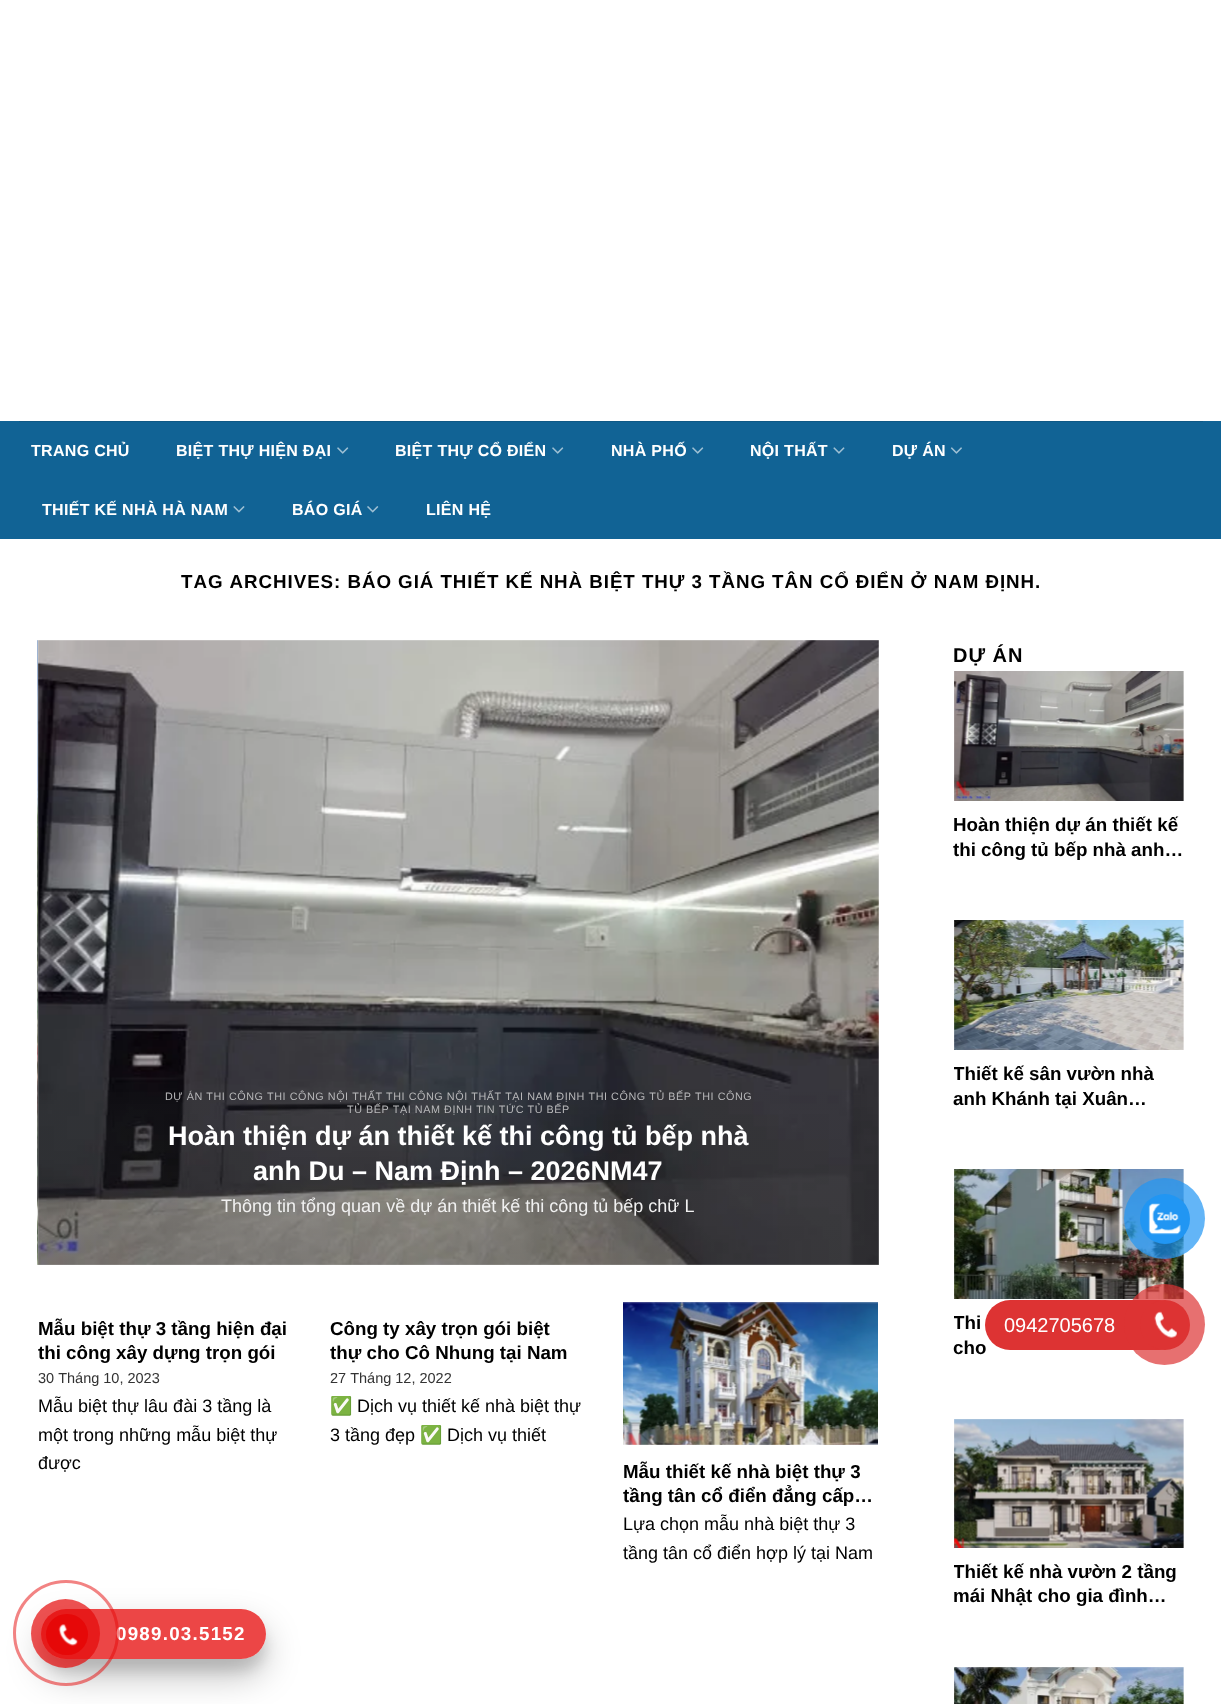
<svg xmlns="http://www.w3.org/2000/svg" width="1221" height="1704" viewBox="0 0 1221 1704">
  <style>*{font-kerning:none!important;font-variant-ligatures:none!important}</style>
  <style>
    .t1 { font: bold 16px Liberation Sans; letter-spacing: 0.3px; fill: #fff; }
    .t2 { font: bold 18.75px Liberation Sans; letter-spacing: 0.95px; fill: #000; }
    .t3 { font: 10.8px Liberation Sans; letter-spacing: 0.55px; fill: #b8b8ba; }
    .t4 { font: bold 27px Liberation Sans; fill: #fff; }
    .t5 { font: 18px Liberation Sans; fill: #f1f1f1; }
    .t6 { font: bold 18.75px Liberation Sans; fill: #000; }
    .t7 { font: 14.5px Liberation Sans; fill: #333; }
    .t8 { font: 18px Liberation Sans; fill: #000; }
    .t9 { font: 18px Noto Color Emoji; fill: #000; }
    .t10 { font: bold 20px Liberation Sans; letter-spacing: 1px; fill: #000; }
    .t11 { font: 20px Liberation Sans; fill: #fff; }
    .t12 { font: bold 18.75px Liberation Sans; letter-spacing: 1.25px; fill: #fff; }
  </style>
  <defs>
    <linearGradient id="g1" gradientUnits="userSpaceOnUse" x1="458" y1="1265" x2="458" y2="640"><stop offset="0" stop-color="#323232" stop-opacity="0.3"/><stop offset="0.33" stop-color="#323232" stop-opacity="0"/></linearGradient>
    <clipPath id="clip1"><rect x="954" y="1061" width="230" height="49"/></clipPath>
    <clipPath id="clip2"><rect x="954" y="1310" width="230" height="49"/></clipPath>
    <clipPath id="clip3"><rect x="954" y="1559" width="230" height="49"/></clipPath>
    <clipPath id="clip4"><path d="M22 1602H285V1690H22ZM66 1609H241C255 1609 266 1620 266 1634C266 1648 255 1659 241 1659H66C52 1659 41 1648 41 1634C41 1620 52 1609 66 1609Z" clip-rule="evenodd"/></clipPath>
    <clipPath id="clip5"><path d="M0 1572H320V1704H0ZM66 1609H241C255 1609 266 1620 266 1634C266 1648 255 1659 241 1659H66C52 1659 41 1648 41 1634C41 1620 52 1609 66 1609Z" clip-rule="evenodd"/></clipPath>
  </defs>
  <rect width="100%" height="100%" fill="#fff"/>
  <rect x="0" y="421" width="1221" height="118" fill="#116395"/>
  <rect x="19" y="421" width="1184" height="1" fill="#0f5986"/>
  <text x="31" y="456" class="t1">TRANG CHỦ</text>
  <text x="176" y="456" class="t1">BIỆT THỰ HIỆN ĐẠI</text>
  <image x="337" y="447" width="12" height="7" href="images/1.png"/>
  <text x="395" y="456" class="t1">BIỆT THỰ CỔ ĐIỂN</text>
  <image x="552" y="447" width="12" height="7" href="images/1.png"/>
  <text x="611" y="456" class="t1">NHÀ PHỐ</text>
  <image x="692" y="447" width="12" height="7" href="images/1.png"/>
  <text x="750" y="456" class="t1">NỘI THẤT</text>
  <image x="833" y="447" width="12" height="7" href="images/2.png"/>
  <text x="892" y="456" class="t1">DỰ ÁN</text>
  <image x="950" y="447" width="12" height="7" href="images/3.png"/>
  <text x="42" y="515" class="t1">THIẾT KẾ NHÀ HÀ NAM</text>
  <image x="233" y="506" width="12" height="7" href="images/4.png"/>
  <text x="292" y="515" class="t1">BÁO GIÁ</text>
  <image x="367" y="506" width="12" height="7" href="images/5.png"/>
  <text x="426" y="515" class="t1">LIÊN HỆ</text>
  <text x="181" y="588" class="t2">TAG ARCHIVES: BÁO GIÁ THIẾT KẾ NHÀ BIỆT THỰ 3 TẦNG TÂN CỔ ĐIỂN Ở NAM ĐỊNH.</text>
  <image x="37" y="640" width="1" height="625" href="images/6.png"/>
  <image x="38" y="640" width="841" height="625" href="images/7.png"/>
  <rect x="38" y="1092" width="841" height="173" fill="url(#g1)"/>
  <text x="165" y="1100" class="t3">DỰ ÁN THI CÔNG THI CÔNG NỘI THẤT THI CÔNG NỘI THẤT TẠI NAM ĐỊNH THI CÔNG TỦ BẾP THI CÔNG</text>
  <text x="347" y="1113" class="t3">TỦ BẾP TẠI NAM ĐỊNH TIN TỨC TỦ BẾP</text>
  <text x="168" y="1145" class="t4">Hoàn thiện dự án thiết kế thi công tủ bếp nhà</text>
  <text x="253" y="1180" class="t4">anh Du – Nam Định – 2026NM47</text>
  <text x="221" y="1212" class="t5">Thông tin tổng quan về dự án thiết kế thi công tủ bếp chữ L</text>
  <text x="38" y="1335" class="t6">Mẫu biệt thự 3 tầng hiện đại</text>
  <text x="38" y="1359" class="t6">thi công xây dựng trọn gói</text>
  <text x="38" y="1383" class="t7">30 Tháng 10, 2023</text>
  <text x="38" y="1412" class="t8">Mẫu biệt thự lâu đài 3 tầng là</text>
  <text x="38" y="1441" class="t8">một trong những mẫu biệt thự</text>
  <text x="38" y="1469" class="t8">được</text>
  <text x="330" y="1335" class="t6">Công ty xây trọn gói biệt</text>
  <text x="330" y="1359" class="t6">thự cho Cô Nhung tại Nam</text>
  <text x="330" y="1383" class="t7">27 Tháng 12, 2022</text>
  <text x="330" y="1412" class="t9">✅</text>
  <text x="357" y="1412" class="t8">Dịch vụ thiết kế nhà biệt thự</text>
  <text x="330" y="1441" class="t8">3 tầng đẹp</text>
  <text x="420" y="1441" class="t9">✅</text>
  <text x="447" y="1441" class="t8">Dịch vụ thiết</text>
  <image x="623" y="1302" width="255" height="143" href="images/8.png"/>
  <text x="623" y="1478" class="t6">Mẫu thiết kế nhà biệt thự 3</text>
  <text x="623" y="1502" class="t6">tầng tân cổ điển đẳng cấp…</text>
  <text x="623" y="1530" class="t8">Lựa chọn mẫu nhà biệt thự 3</text>
  <text x="623" y="1559" class="t8">tầng tân cổ điển hợp lý tại Nam</text>
  <text x="953" y="662" class="t10">DỰ ÁN</text>
  <image x="954" y="671" width="230" height="130" href="images/9.png"/>
  <text x="953" y="831" class="t6">Hoàn thiện dự án thiết kế</text>
  <text x="953" y="856" class="t6">thi công tủ bếp nhà anh…</text>
  <image x="954" y="920" width="230" height="130" href="images/10.png"/>
  <g clip-path="url(#clip1)">
    <text x="953" y="1080" class="t6">Thiết kế sân vườn nhà</text>
  </g>
  <text x="953" y="1105" class="t6">anh Khánh tại Xuân…</text>
  <image x="954" y="1169" width="230" height="130" href="images/11.png"/>
  <g clip-path="url(#clip2)">
    <text x="953" y="1329" class="t6">Thi</text>
  </g>
  <text x="953" y="1354" class="t6">cho</text>
  <image x="954" y="1419" width="230" height="129" href="images/12.png"/>
  <g clip-path="url(#clip3)">
    <text x="953" y="1578" class="t6">Thiết kế nhà vườn 2 tầng</text>
  </g>
  <text x="953" y="1602" class="t6">mái Nhật cho gia đình…</text>
  <image x="954" y="1667" width="230" height="37" href="images/13.png"/>
  <circle cx="1164.5" cy="1218.5" r="40.5" fill="#2196f3b3"/>
  <circle cx="1165" cy="1219" r="25" fill="#2196f3"/>
  <image x="1148" y="1203" width="33" height="32" href="images/14.png"/>
  <rect x="985" y="1300" width="199" height="50" rx="25" fill="#d33"/>
  <text x="1004" y="1332" class="t11">0942705678</text>
  <circle cx="1164.5" cy="1324.5" r="40.5" fill="#dd3333b3"/>
  <circle cx="1165" cy="1325" r="25" fill="#d33"/>
  <image x="1154" y="1311" width="23" height="27" href="images/15.png"/>
  <g clip-path="url(#clip4)">
    <rect x="41" y="1621" width="225" height="50" rx="25" fill="#0000001a" filter="blur(6px)"/>
  </g>
  <g clip-path="url(#clip5)">
    <rect x="41" y="1626" width="225" height="50" rx="25" fill="#00000040" filter="blur(17.5px)"/>
  </g>
  <rect x="41" y="1609" width="225" height="50" rx="25" fill="#e60808bf"/>
  <text x="116" y="1640" class="t12">0989.03.5152</text>
  <circle cx="66" cy="1633" r="51.5" fill="none" stroke="#e6080880" stroke-width="3"/>
  <circle cx="65.5" cy="1633.5" r="34.5" fill="#e60808b3"/>
  <rect x="46" y="1614" width="42" height="41" rx="20.5" fill="#e60808"/>
  <image x="58" y="1624" width="20" height="22" href="images/16.png"/>
</svg>
